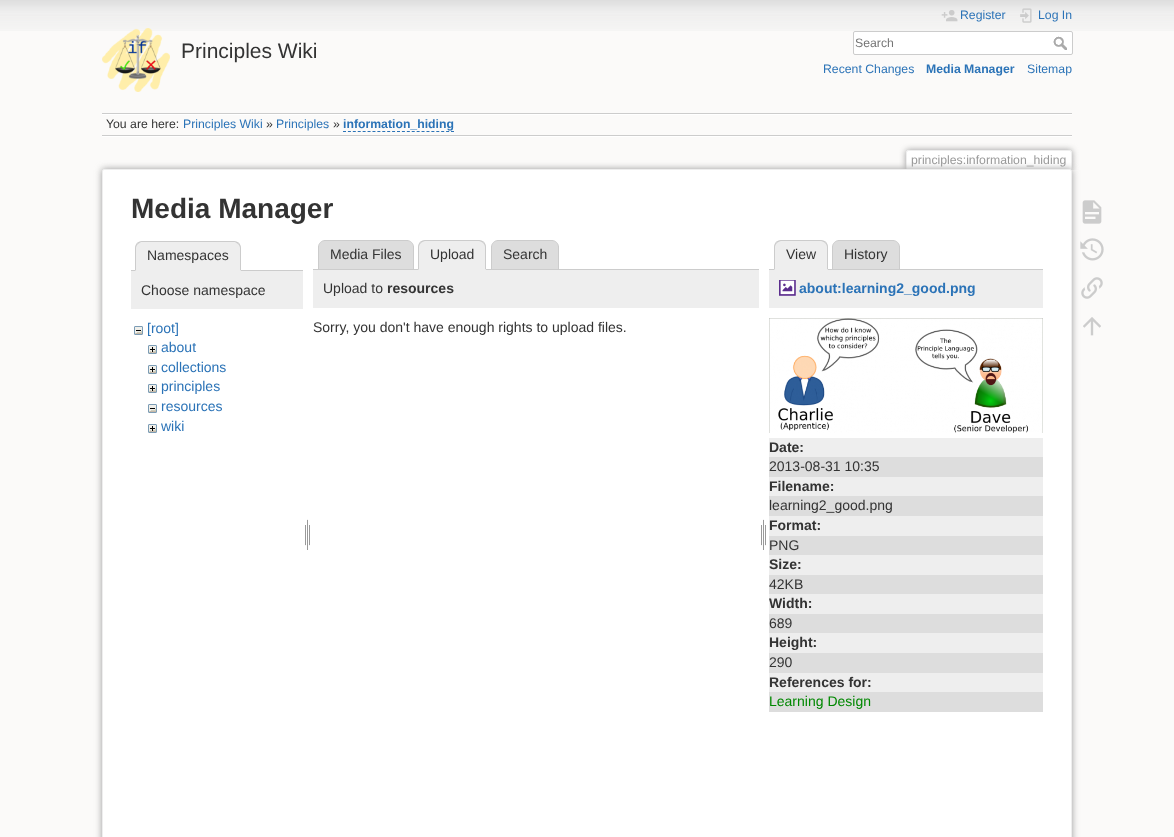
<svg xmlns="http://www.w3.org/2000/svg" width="1174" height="837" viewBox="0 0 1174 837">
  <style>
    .t1 { font: 21px Liberation Sans; fill: #333; }
    .t2 { font: 12.25px Liberation Sans; fill: #2b73b7; }
    .t3 { font: 12.25px Liberation Sans; fill: #757575; }
    .t4 { font: bold 12.25px Liberation Sans; fill: #2b73b7; }
    .t5 { font: 12.25px Liberation Sans; fill: #333; }
    .t6 { font: 12.25px Liberation Sans; fill: #999; }
    .t7 { font: bold 28px Liberation Sans; fill: #333; }
    .t8 { font: 14px Liberation Sans; fill: #333; }
    .t9 { font: 14px Liberation Sans; fill: #2b73b7; }
    .t10 { font: bold 14px Liberation Sans; fill: #333; }
    .t11 { font: bold 14px Liberation Sans; fill: #2b73b7; }
    .t12 { font: 14px Liberation Sans; fill: #080; }
  </style>
  <defs>
    <clipPath id="clip1"><rect x="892" y="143" width="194" height="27"/></clipPath>
  </defs>
  <rect width="100%" height="100%" fill="#fbfaf9"/>
  <image x="0" y="0" width="1174" height="31" href="images/1.png"/>
  <image x="102" y="28" width="68" height="64" href="images/2.png"/>
  <text x="181" y="58" class="t1">Principles Wiki</text>
  <image x="941" y="10" width="17" height="12" href="images/3.png"/>
  <text x="960" y="19" class="t2">Register</text>
  <image x="1020" y="8" width="12" height="15" href="images/4.png"/>
  <text x="1038" y="19" class="t2">Log In</text>
  <rect x="853.5" y="31.5" width="219" height="23" rx="1.5" fill="#fff" stroke="#ccc"/>
  <text x="855" y="47" class="t3">Search</text>
  <image x="1053" y="36" width="14" height="14" href="images/5.png"/>
  <text x="823" y="73" class="t2">Recent Changes</text>
  <text x="926" y="73" class="t4">Media Manager</text>
  <text x="1027" y="73" class="t2">Sitemap</text>
  <rect x="102" y="113" width="970" height="1" fill="#ccc"/>
  <rect x="102" y="136" width="970" height="1" fill="#fff"/>
  <rect x="102" y="114" width="970" height="1" fill="#fff"/>
  <rect x="102" y="135" width="970" height="1" fill="#ccc"/>
  <text x="106" y="128" class="t5">You are here:</text>
  <text x="183" y="128" class="t2">Principles Wiki</text>
  <text x="266" y="128" class="t5">»</text>
  <text x="276" y="128" class="t2">Principles</text>
  <text x="333" y="128" class="t5">»</text>
  <text x="343" y="128" class="t4">information_hiding</text>
  <path d="M343 131.5H454" fill="none" stroke="#2b73b7" stroke-dasharray="3 1.91"/>
  <g clip-path="url(#clip1)">
    <rect x="906" y="150" width="166" height="20" rx="2" fill="#999" filter="blur(3px)"/>
  </g>
  <path d="M908 151H1070C1070.5 151 1071 151.5 1071 152V170H907V152C907 151.5 907.5 151 908 151Z" fill="#fff"/>
  <rect x="907" y="150" width="164" height="1" fill="#eee"/>
  <rect x="1071" y="151" width="1" height="19" fill="#eee"/>
  <rect x="906" y="151" width="1" height="19" fill="#eee"/>
  <text x="911" y="164" class="t6">principles:information_hiding</text>
  <rect x="102" y="169" width="970" height="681" rx="2" fill="#999" filter="blur(3.5px)"/>
  <rect x="102.5" y="169.5" width="969" height="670" rx="1.5" fill="#fff" stroke="#eee"/>
  <text x="131" y="218" class="t7">Media Manager</text>
  <rect x="131" y="270" width="172" height="1" fill="#ccc"/>
  <path d="M142 241H234C238 241 241 244 241 248V271H135V248C135 244 138 241 142 241Z" fill="#eee"/>
  <path d="M142 241C140 241 138 242 137 243L138 244L141 242H235L238 244L239 243C238 242 236 241 234 241Z" fill="#ccc"/>
  <path d="M241 271V248C241 246 240 244 239 243L238 244C239 245 240 246.5 240 248V270Z" fill="#ccc"/>
  <path d="M241 271L240 270H136L135 271Z" fill="#eee"/>
  <path d="M135 271L136 270V248C136 246.5 137 245 138 244L137 243C136 244 135 246 135 248Z" fill="#ccc"/>
  <text x="147" y="260" class="t8">Namespaces</text>
  <rect x="131" y="271" width="172" height="38" fill="#eee"/>
  <text x="141" y="295" class="t8">Choose namespace</text>
  <image x="134" y="326" width="9" height="9" href="images/6.png"/>
  <text x="147" y="333" class="t9">[root]</text>
  <image x="148" y="345" width="9" height="9" href="images/7.png"/>
  <text x="161" y="352" class="t9">about</text>
  <image x="148" y="365" width="9" height="9" href="images/7.png"/>
  <text x="161" y="372" class="t9">collections</text>
  <image x="148" y="384" width="9" height="9" href="images/7.png"/>
  <text x="161" y="391" class="t9">principles</text>
  <image x="148" y="404" width="9" height="9" href="images/6.png"/>
  <text x="161" y="411" class="t9">resources</text>
  <image x="148" y="424" width="9" height="9" href="images/7.png"/>
  <text x="161" y="431" class="t9">wiki</text>
  <image x="305" y="519" width="5" height="31" href="images/8.png"/>
  <path d="M325 240.5H407C410.5 240.5 413.5 243.5 413.5 247V269.5H318.5V247C318.5 243.5 321.5 240.5 325 240.5Z" fill="#ddd" stroke="#ccc"/>
  <text x="330" y="259" class="t8">Media Files</text>
  <path d="M498 240.5H552C555.5 240.5 558.5 243.5 558.5 247V269.5H491.5V247C491.5 243.5 494.5 240.5 498 240.5Z" fill="#ddd" stroke="#ccc"/>
  <rect x="313" y="269" width="446" height="1" fill="#ccc"/>
  <path d="M425 240H479C483 240 486 243 486 247V270H418V247C418 243 421 240 425 240Z" fill="#eee"/>
  <path d="M425 240C423 240 421 241 420 242L421 243C422 242 424 241 425 241H479C480 241 482 242 483 243L484 242C483 241 481 240 479 240Z" fill="#ccc"/>
  <path d="M486 270V247C486 245 485 243 484 242L483 243C484 244 485 245.5 485 247V269Z" fill="#ccc"/>
  <path d="M486 270L485 269H419L418 270Z" fill="#eee"/>
  <path d="M418 270L419 269V247C419 245.5 420 244 421 243L420 242C419 243 418 245 418 247Z" fill="#ccc"/>
  <text x="430" y="259" class="t8">Upload</text>
  <text x="503" y="259" class="t8">Search</text>
  <rect x="313" y="270" width="446" height="38" fill="#eee"/>
  <text x="323" y="293" class="t8">Upload to</text>
  <text x="387" y="293" class="t10">resources</text>
  <text x="313" y="332" class="t8">Sorry, you don't have enough rights to upload files.</text>
  <image x="761" y="519" width="5" height="31" href="images/8.png"/>
  <path d="M839 240.5H893C896.5 240.5 899.5 243.5 899.5 247V269.5H832.5V247C832.5 243.5 835.5 240.5 839 240.5Z" fill="#ddd" stroke="#ccc"/>
  <rect x="769" y="269" width="274" height="1" fill="#ccc"/>
  <path d="M781 240H821C825 240 828 243 828 247V270H774V247C774 243 777 240 781 240Z" fill="#eee"/>
  <path d="M781 240C779 240 777 241 776 242L777 243C778 242 780 241 781 241H821C822 241 824 242 825 243L826 242C825 241 823 240 821 240Z" fill="#ccc"/>
  <path d="M828 270V247C828 245 827 243 826 242L825 243C826 244 827 245.5 827 247V269Z" fill="#ccc"/>
  <path d="M828 270L827 269H775L774 270Z" fill="#eee"/>
  <path d="M774 270L775 269V247C775 245.5 776 244 777 243L776 242C775 243 774 245 774 247Z" fill="#ccc"/>
  <text x="786" y="259" class="t8">View</text>
  <text x="844" y="259" class="t8">History</text>
  <rect x="769" y="270" width="274" height="38" fill="#eee"/>
  <image x="779" y="280" width="17" height="16" href="images/9.png"/>
  <text x="799" y="293" class="t11">about:learning2_good.png</text>
  <image x="769" y="318" width="274" height="115" href="images/10.png"/>
  <rect x="769" y="438" width="274" height="19" fill="#eee"/>
  <text x="769" y="452" class="t10">Date:</text>
  <rect x="769" y="457" width="274" height="20" fill="#ddd"/>
  <text x="769" y="471" class="t8">2013-08-31 10:35</text>
  <rect x="769" y="477" width="274" height="19" fill="#eee"/>
  <text x="769" y="491" class="t10">Filename:</text>
  <rect x="769" y="496" width="274" height="20" fill="#ddd"/>
  <text x="769" y="510" class="t8">learning2_good.png</text>
  <rect x="769" y="516" width="274" height="20" fill="#eee"/>
  <text x="769" y="530" class="t10">Format:</text>
  <rect x="769" y="536" width="274" height="19" fill="#ddd"/>
  <text x="769" y="550" class="t8">PNG</text>
  <rect x="769" y="555" width="274" height="20" fill="#eee"/>
  <text x="769" y="569" class="t10">Size:</text>
  <rect x="769" y="575" width="274" height="19" fill="#ddd"/>
  <text x="769" y="589" class="t8">42KB</text>
  <rect x="769" y="594" width="274" height="20" fill="#eee"/>
  <text x="769" y="608" class="t10">Width:</text>
  <rect x="769" y="614" width="274" height="19" fill="#ddd"/>
  <text x="769" y="628" class="t8">689</text>
  <rect x="769" y="633" width="274" height="20" fill="#eee"/>
  <text x="769" y="647" class="t10">Height:</text>
  <rect x="769" y="653" width="274" height="20" fill="#ddd"/>
  <text x="769" y="667" class="t8">290</text>
  <rect x="769" y="673" width="274" height="19" fill="#eee"/>
  <text x="769" y="687" class="t10">References for:</text>
  <rect x="769" y="692" width="274" height="20" fill="#ddd"/>
  <text x="769" y="706" class="t12">Learning Design</text>
  <image x="1082" y="200" width="20" height="24" href="images/11.png"/>
  <image x="1080" y="238" width="24" height="23" href="images/12.png"/>
  <image x="1081" y="277" width="22" height="22" href="images/13.png"/>
  <image x="1083" y="317" width="18" height="19" href="images/14.png"/>
</svg>
